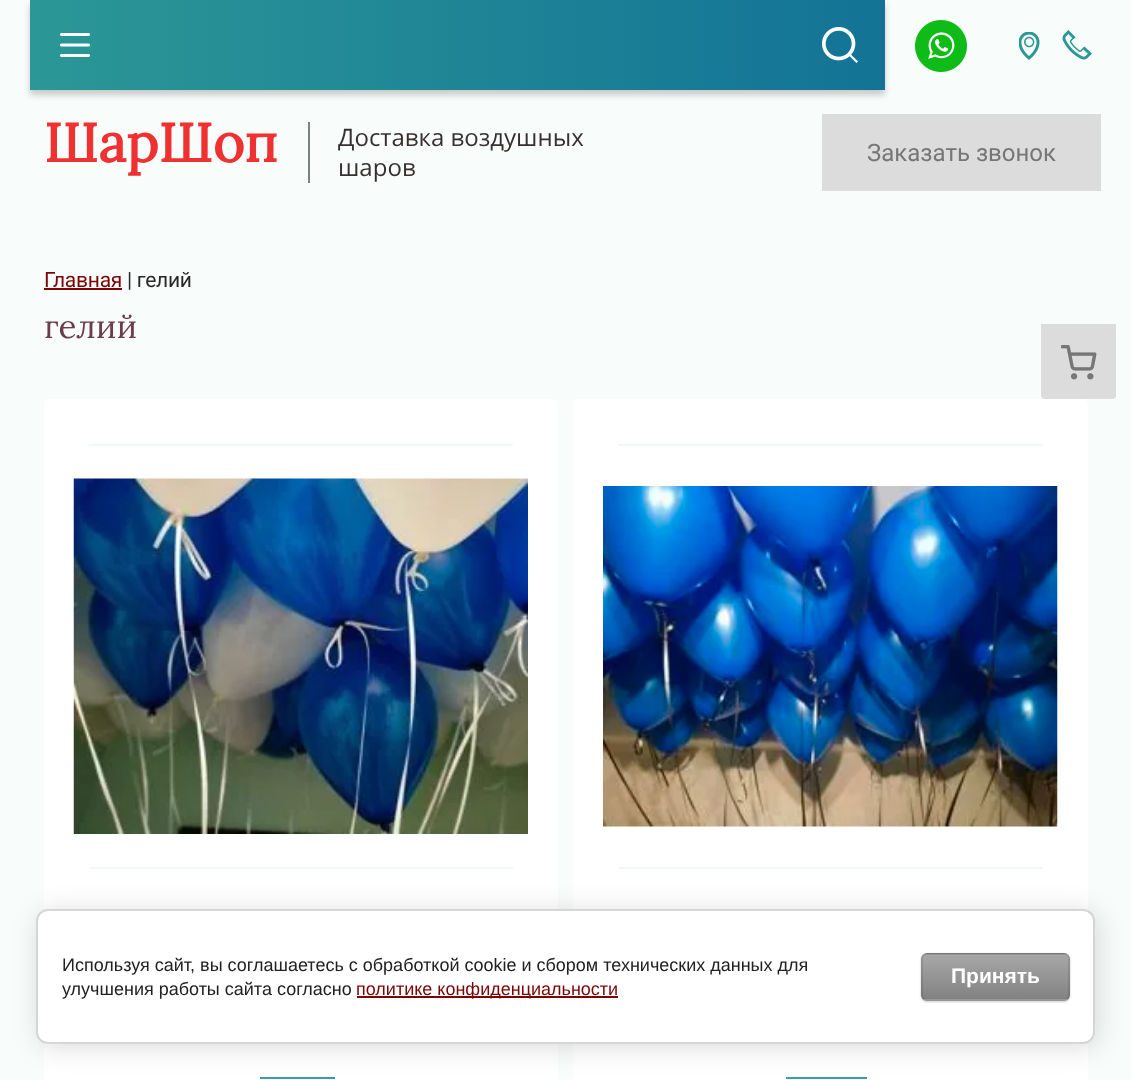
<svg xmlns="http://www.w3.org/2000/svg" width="1131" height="1080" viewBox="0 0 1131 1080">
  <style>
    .t1 { font: bold 54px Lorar; fill: #ef3131; }
    .t2 { font: 24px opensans; fill: #383030; }
    .t3 { font: 24px Roboto; fill: #767676; }
    .t4 { font: 21px Roboto; letter-spacing: -0.25px; fill: #7b0405; }
    .t5 { font: 21px Roboto; letter-spacing: -0.25px; fill: #282828; }
    .t6 { font: 33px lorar; fill: #6d3d4b; }
    .t7 { font: 18px Liberation Sans; fill: #212121; }
    .t8 { font: 18px Liberation Sans; fill: #7b0405; }
    .t9 { font: bold 21px Liberation Sans; fill: #fff; }
  </style>
  <defs>
    <linearGradient id="g1" gradientUnits="userSpaceOnUse" x1="30" y1="45" x2="885" y2="45"><stop offset="0" stop-color="#2b9796"/><stop offset="1" stop-color="#137396"/></linearGradient>
    <clipPath id="clip1"><rect x="921" y="953" width="149" height="48" rx="6"/></clipPath>
    <linearGradient id="g2" gradientUnits="userSpaceOnUse" x1="995" y1="909" x2="995" y2="954"><stop offset="0" stop-color="#a8a8a8"/><stop offset="1" stop-color="#828282"/></linearGradient>
    <linearGradient id="g3" gradientUnits="userSpaceOnUse" x1="995" y1="954" x2="995" y2="999"><stop offset="0" stop-color="#a8a8a8"/><stop offset="1" stop-color="#828282"/></linearGradient>
    <linearGradient id="g4" gradientUnits="userSpaceOnUse" x1="995" y1="999" x2="995" y2="1044"><stop offset="0" stop-color="#a8a8a8"/><stop offset="1" stop-color="#828282"/></linearGradient>
  </defs>
  <rect width="100%" height="100%" fill="#f8fdfb"/>
  <rect x="30" y="5" width="855" height="90" fill="#00000033" filter="blur(3px)"/>
  <rect x="30" y="0" width="855" height="90" fill="url(#g1)"/>
  <image x="60" y="33" width="30" height="24" href="images/1.png"/>
  <image x="822" y="27" width="36" height="36" href="images/2.png"/>
  <image x="915" y="20" width="52" height="52" href="images/3.png"/>
  <image x="1019" y="32" width="21" height="28" href="images/4.png"/>
  <image x="1062" y="30" width="30" height="30" href="images/5.png"/>
  <text x="44" y="162" class="t1">ШарШоп</text>
  <rect x="308" y="122" width="2" height="61" fill="#7c8181"/>
  <text x="338" y="146" class="t2">Доставка воздушных</text>
  <text x="338" y="176" class="t2">шаров</text>
  <rect x="822" y="114" width="279" height="77" fill="#dcdcdc"/>
  <text x="867" y="161" class="t3">Заказать звонок</text>
  <text x="44" y="287" class="t4">Главная</text>
  <rect x="44" y="288" width="78" height="2" fill="#7b0405"/>
  <text x="127" y="287" class="t5">| гелий</text>
  <text x="44" y="338" class="t6">гелий</text>
  <rect x="44" y="399" width="514" height="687" rx="6" fill="#fff"/>
  <rect x="89" y="444" width="424" height="2" fill="#eff9f6"/>
  <image x="73" y="478" width="455" height="356" href="images/6.png"/>
  <rect x="89" y="867" width="424" height="2" fill="#eff9f6"/>
  <rect x="260" y="1077" width="75" height="2" fill="#369eb1"/>
  <rect x="573" y="399" width="515" height="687" rx="6" fill="#fff"/>
  <rect x="618" y="444" width="425" height="2" fill="#eff9f6"/>
  <image x="603" y="486" width="455" height="341" href="images/7.png"/>
  <rect x="618" y="867" width="425" height="2" fill="#eff9f6"/>
  <rect x="786" y="1077" width="81" height="2" fill="#369eb1"/>
  <path d="M1041 324H1116V396C1116 397.5 1114.5 399 1113 399H1044C1042.5 399 1041 397.5 1041 396Z" fill="#dcdcdc"/>
  <image x="1061" y="345" width="36" height="35" href="images/8.png"/>
  <rect x="39" y="912" width="1059" height="135" rx="12" fill="#00000024" filter="blur(13.5px)"/>
  <rect x="37" y="910" width="1057" height="133" rx="11" fill="#fff" stroke="#d6d6d6" stroke-width="2"/>
  <text x="62" y="971" class="t7">Используя сайт, вы соглашаетесь с обработкой cookie и сбором технических данных для</text>
  <text x="62" y="995" class="t7">улучшения работы сайта согласно</text>
  <rect x="357" y="996" width="261" height="2" fill="#7b0405"/>
  <text x="356" y="995" class="t8">политике конфиденциальности</text>
  <rect x="921" y="954" width="149" height="48" rx="6" fill="#00000033" filter="blur(1px)"/>
  <g clip-path="url(#clip1)">
    <rect x="921" y="953" width="149" height="1" fill="url(#g2)"/>
    <rect x="921" y="954" width="149" height="45" fill="url(#g3)"/>
    <rect x="921" y="999" width="149" height="2" fill="url(#g4)"/>
  </g>
  <rect x="922" y="954" width="147" height="46" rx="5" fill="none" stroke="#0000001a" stroke-width="2"/>
  <text x="951" y="983" class="t9">Принять</text>
</svg>
